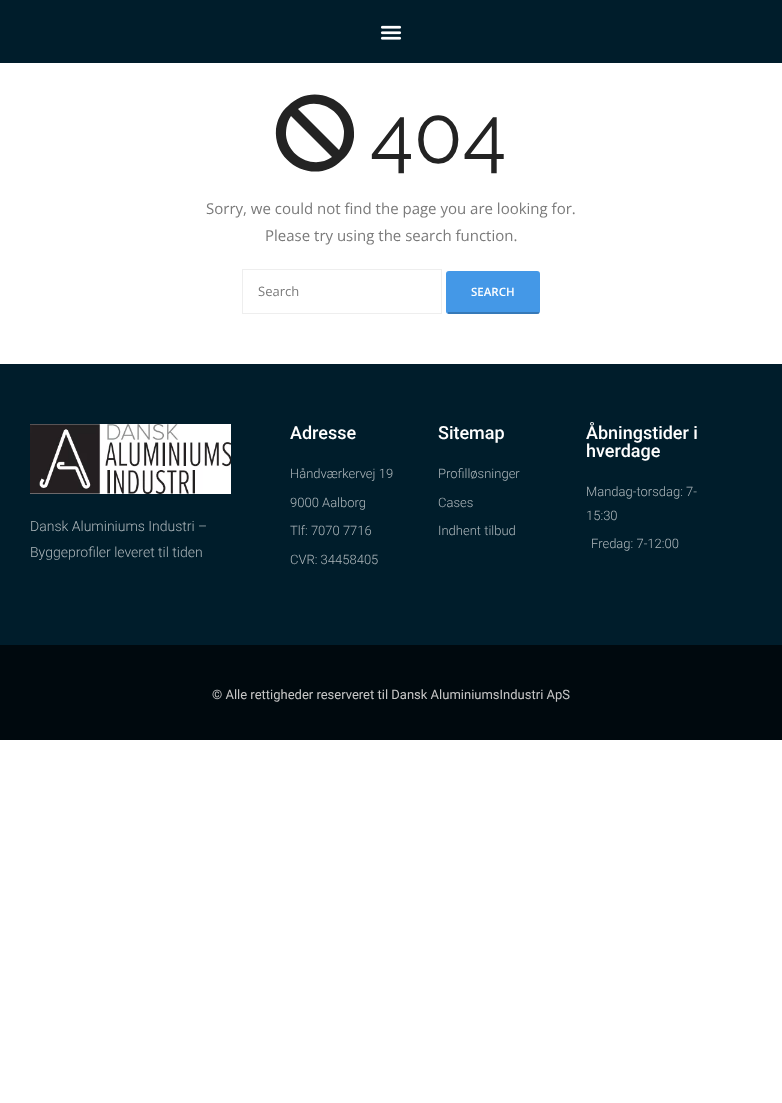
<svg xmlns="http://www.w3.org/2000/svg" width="782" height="1103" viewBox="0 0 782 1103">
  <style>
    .t1 { font: 80px Raleway; fill: #232323; }
    .t2 { font: 15px Open Sans; fill: #7a7a7a; }
    .t3 { font: 13px Open Sans; fill: #7a7a7a; }
    .t4 { font: 600 11.5px Open Sans; fill: #fff; }
    .t5 { font: 500 18px Roboto; fill: #fff; }
    .t6 { font: 300 13px Roboto; fill: #adb7bb; }
    .t7 { font: 300 14px Roboto; fill: #adb7bb; }
    .t8 { font: 13px Roboto; fill: #c6c6c6; }
  </style>
  <rect width="100%" height="100%" fill="#fff"/>
  <rect x="0" y="0" width="782" height="63" fill="#001d2b"/>
  <image x="380" y="25" width="22" height="15" href="images/1.png"/>
  <path d="M288 106C313 80 357 101 354 137C353 146 349 154 342 160C317 186 273 165 276 129C277 120 281 112 288 106ZM344 131C342 109 316 96 298 109L339 150C343 144 344 138 344 131ZM286 135C288 157 314 170 332 157L291 116C287 122 286 128 286 135Z" fill="#232323"/>
  <text x="370" y="163" class="t1">404</text>
  <text x="206" y="214" class="t2">Sorry, we could not find the page you are looking for.</text>
  <text x="265" y="241" class="t2">Please try using the search function.</text>
  <rect x="242.5" y="269.5" width="199" height="44" fill="none" stroke="#eee"/>
  <text x="258" y="296" class="t3">Search</text>
  <rect x="446" y="271" width="94" height="43" rx="3" fill="#4498e7"/>
  <rect x="448" y="312" width="91" height="2" fill="#00000033"/>
  <text x="471" y="296" class="t4">SEARCH</text>
  <rect x="0" y="364" width="782" height="281" fill="#001d2b"/>
  <text x="290" y="439" class="t5">Adresse</text>
  <text x="290" y="478" class="t6">Håndværkervej 19</text>
  <text x="290" y="507" class="t6">9000 Aalborg</text>
  <text x="290" y="535" class="t6">Tlf: 7070 7716</text>
  <text x="290" y="564" class="t6">CVR: 34458405</text>
  <text x="438" y="439" class="t5">Sitemap</text>
  <text x="438" y="478" class="t6">Profilløsninger</text>
  <text x="438" y="507" class="t6">Cases</text>
  <text x="438" y="535" class="t6">Indhent tilbud</text>
  <text x="586" y="439" class="t5">Åbningstider i</text>
  <text x="586" y="457" class="t5">hverdage</text>
  <text x="586" y="496" class="t6">Mandag-torsdag: 7-</text>
  <text x="586" y="520" class="t6">15:30</text>
  <text x="591" y="548" class="t6">Fredag: 7-12:00</text>
  <image x="30" y="424" width="201" height="70" href="images/2.png"/>
  <text x="30" y="531" class="t7">Dansk Aluminiums Industri –</text>
  <text x="30" y="557" class="t7">Byggeprofiler leveret til tiden</text>
  <rect x="0" y="645" width="782" height="95" fill="#00090e"/>
  <text x="212" y="699" class="t8">© Alle rettigheder reserveret til Dansk AluminiumsIndustri ApS</text>
</svg>
